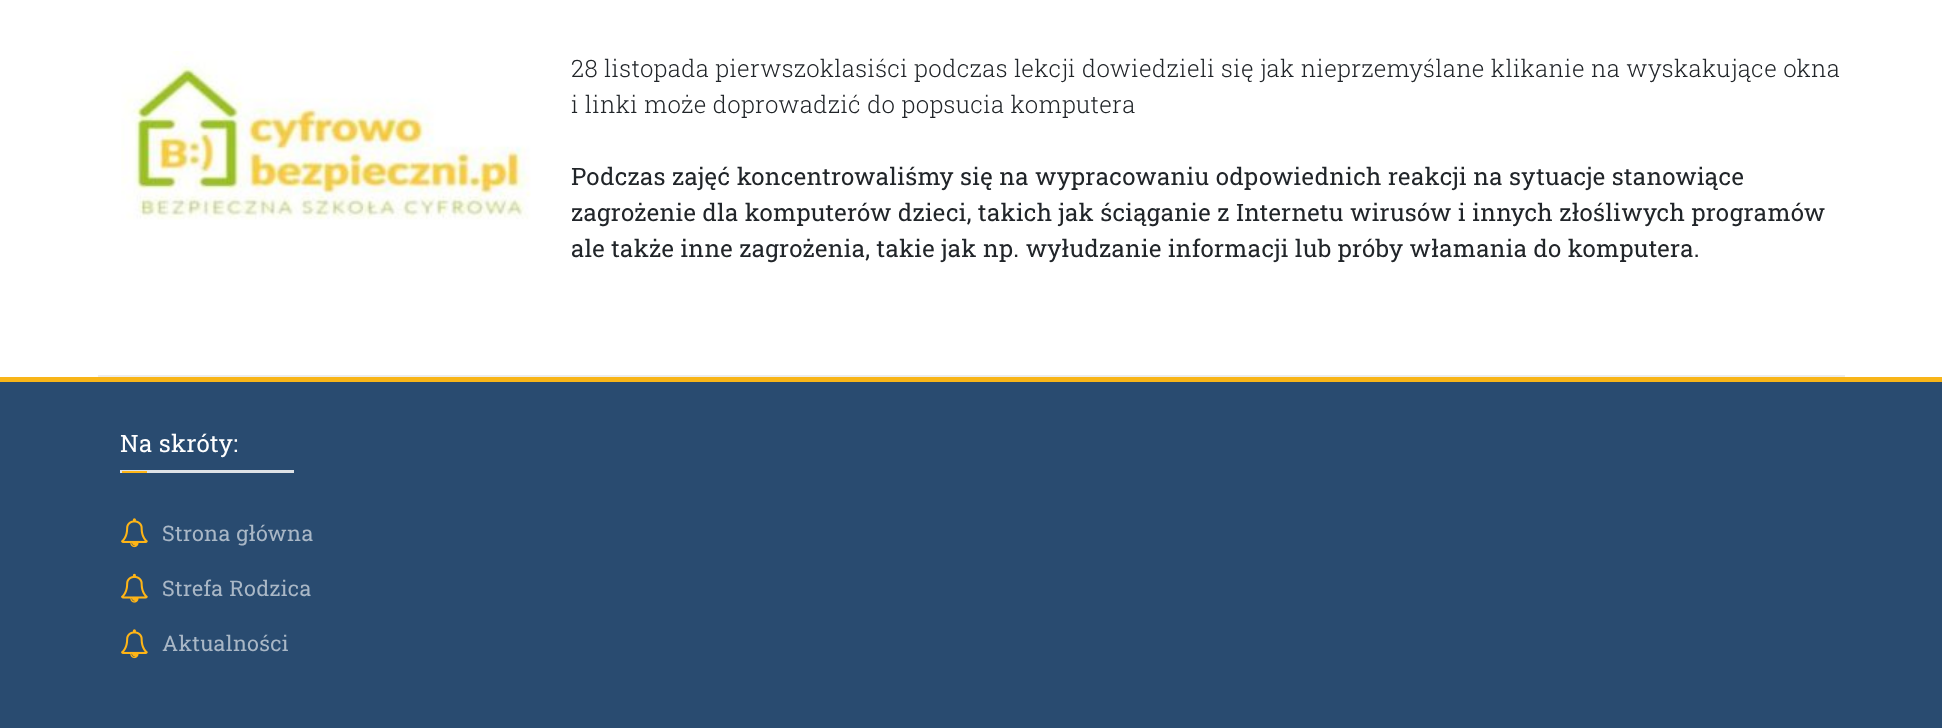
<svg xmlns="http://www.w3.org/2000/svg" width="1942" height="728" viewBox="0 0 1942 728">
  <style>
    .t1 { font: 300 24px Roboto Slab; letter-spacing: 0.3px; fill: #212529; }
    .t2 { font: 24px Roboto Slab; letter-spacing: 0.3px; fill: #212529; }
    .t3 { font: 24px Roboto Slab; letter-spacing: 0.3px; fill: #fff; }
    .t4 { font: 21.5px Roboto Slab; letter-spacing: 0.3px; fill: #a9b7c6; }
  </style>
  <rect width="100%" height="100%" fill="#fff"/>
  <rect x="98" y="375" width="1747" height="2" fill="#eee"/>
  <image x="121" y="51" width="410" height="169" href="images/1.png"/>
  <text x="571" y="77" class="t1">28 listopada pierwszoklasiści podczas lekcji dowiedzieli się jak nieprzemyślane klikanie na wyskakujące okna</text>
  <text x="571" y="113" class="t1">i linki może doprowadzić do popsucia komputera</text>
  <text x="571" y="185" class="t2">Podczas zajęć koncentrowaliśmy się na wypracowaniu odpowiednich reakcji na sytuacje stanowiące</text>
  <text x="571" y="221" class="t2">zagrożenie dla komputerów dzieci, takich jak ściąganie z Internetu wirusów i innych złośliwych programów</text>
  <text x="571" y="257" class="t2">ale także inne zagrożenia, takie jak np. wyłudzanie informacji lub próby włamania do komputera.</text>
  <rect x="0" y="382" width="1942" height="346" fill="#294b70"/>
  <rect x="0" y="377" width="1942" height="5" fill="#f8b518"/>
  <text x="120" y="452" class="t3">Na skróty:</text>
  <rect x="120" y="470" width="174" height="3" fill="#dee2e6"/>
  <rect x="122" y="471" width="25" height="2" fill="#ffb516"/>
  <image x="121" y="518" width="27" height="30" href="images/2.png"/>
  <text x="162" y="541" class="t4">Strona główna</text>
  <image x="121" y="573" width="27" height="30" href="images/3.png"/>
  <text x="162" y="596" class="t4">Strefa Rodzica</text>
  <image x="121" y="629" width="27" height="30" href="images/2.png"/>
  <text x="162" y="651" class="t4">Aktualności</text>
</svg>
